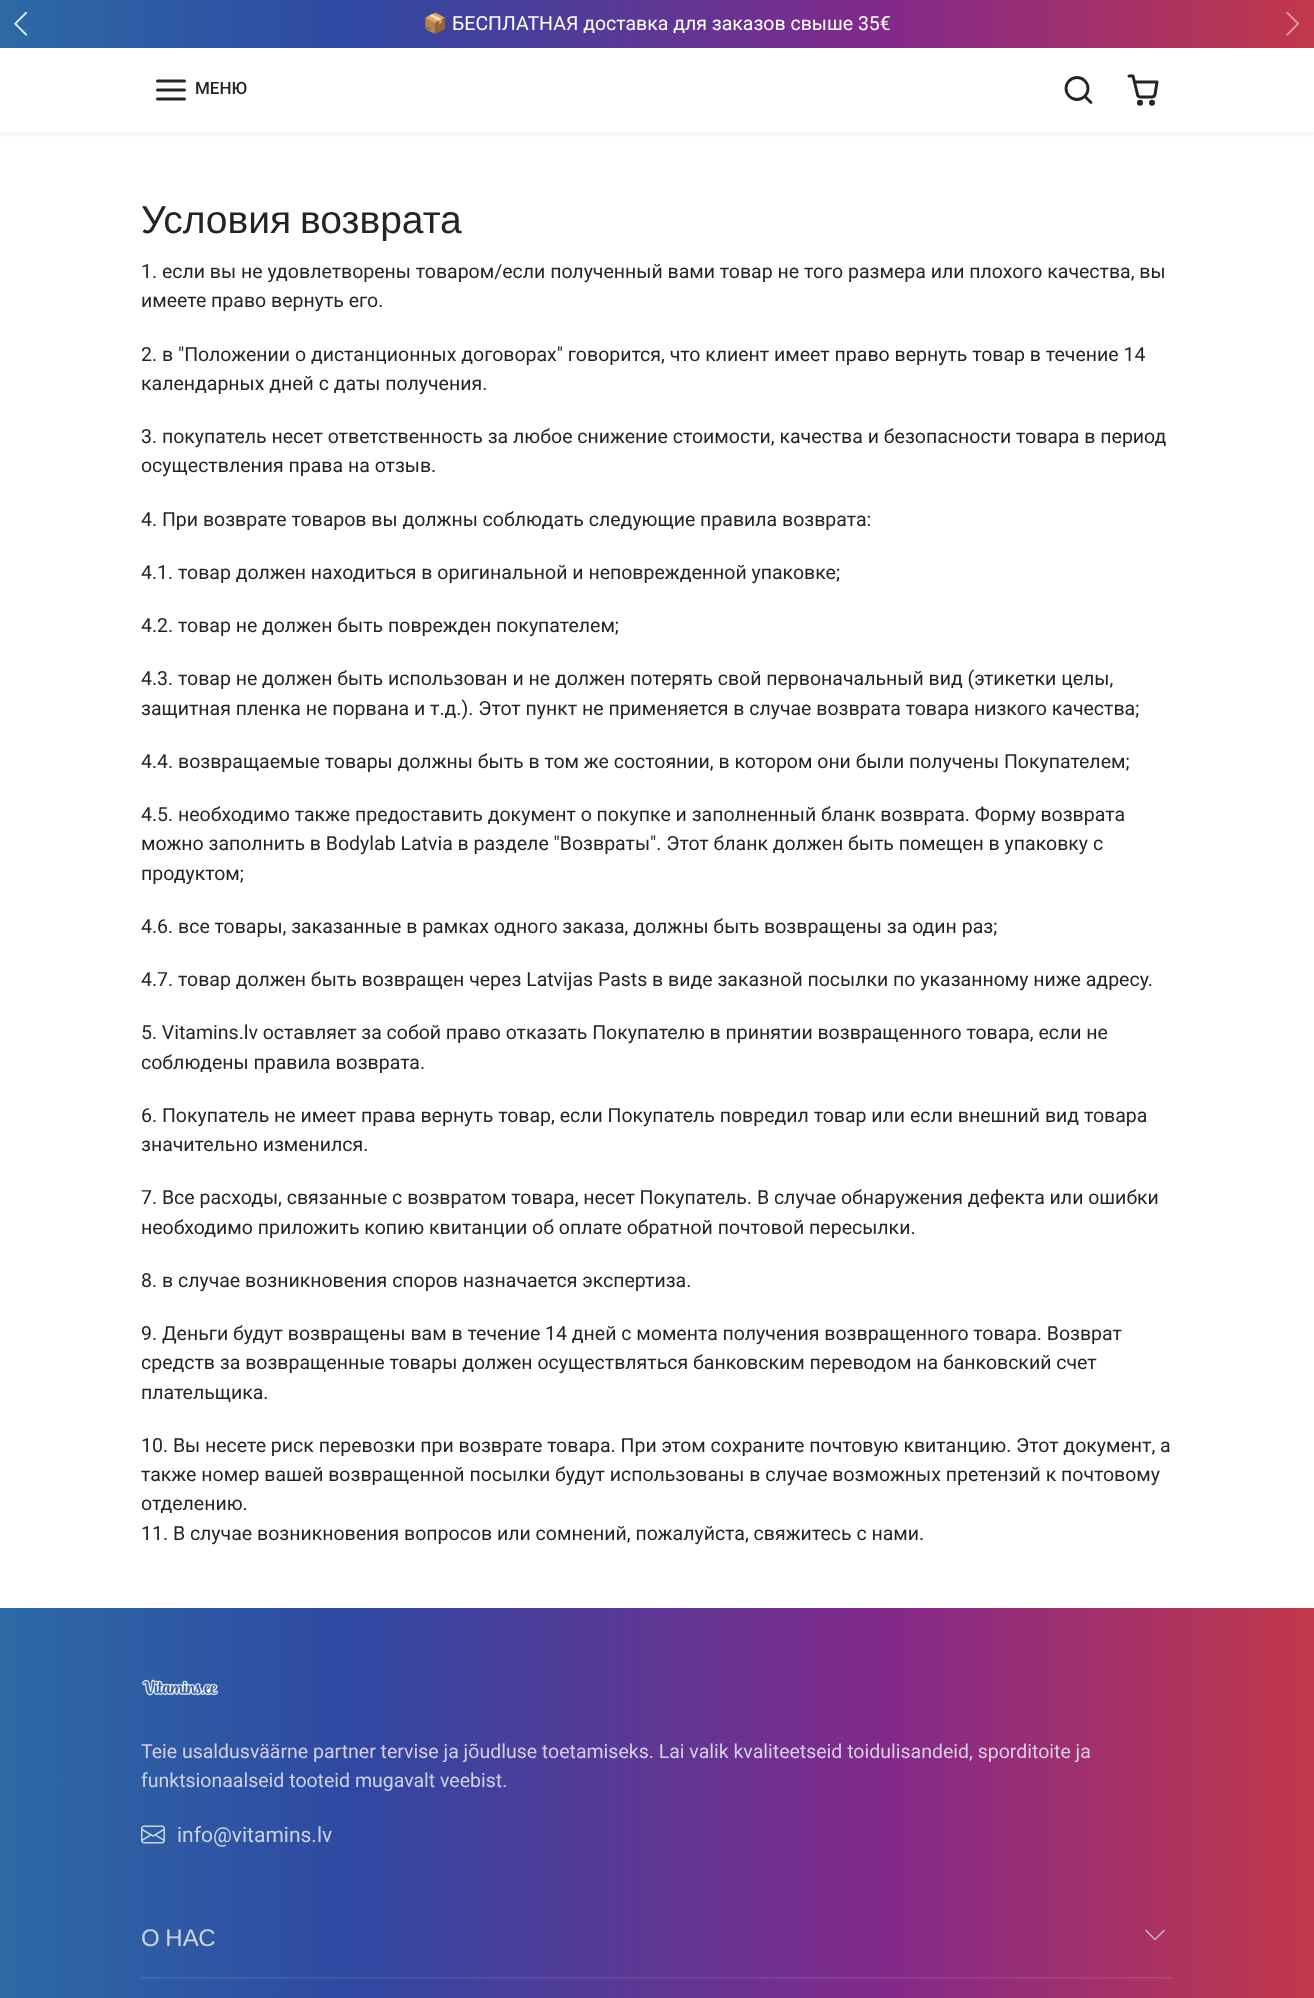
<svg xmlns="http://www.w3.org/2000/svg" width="1314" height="1998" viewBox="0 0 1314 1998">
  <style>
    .t1 { font: 19.5px Noto Color Emoji; fill: #fff; }
    .t2 { font: 19.5px Roboto; fill: #fff; }
    .t3 { font: 500 17px Roboto; fill: #212529; }
    .t4 { font: 39px Liberation Sans; fill: #212529; }
    .t5 { font: 19.5px Roboto; fill: #212529; }
    .t6 { font: 19.5px Roboto; fill: #d6cee4; }
    .t7 { font: 19.5px Roboto; fill: #ccd2e8; }
    .t8 { font: 21px Roboto; fill: #ccd2e8; }
    .t9 { font: 24px Liberation Sans; fill: #ccd2e8; }
  </style>
  <defs>
    <linearGradient id="g1" gradientUnits="userSpaceOnUse" x1="0" y1="24" x2="1314" y2="24"><stop offset="0" stop-color="#2d6aa6"/><stop offset="0.27" stop-color="#2f48a2"/><stop offset="0.68" stop-color="#84298a"/><stop offset="1" stop-color="#c2384a"/></linearGradient>
    <clipPath id="clip1"><rect x="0" y="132" width="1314" height="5"/></clipPath>
    <linearGradient id="g2" gradientUnits="userSpaceOnUse" x1="0" y1="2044" x2="1314" y2="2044"><stop offset="0" stop-color="#2d6aa6"/><stop offset="0.27" stop-color="#2f48a2"/><stop offset="0.68" stop-color="#84298a"/><stop offset="1" stop-color="#c2384a"/></linearGradient>
    <linearGradient id="g3" gradientUnits="userSpaceOnUse" x1="0" y1="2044" x2="1314" y2="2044"><stop offset="0" stop-color="#3e76ad"/><stop offset="0.27" stop-color="#4057a9"/><stop offset="0.68" stop-color="#8e3a93"/><stop offset="1" stop-color="#c74858"/></linearGradient>
  </defs>
  <rect width="100%" height="100%" fill="#fff"/>
  <rect x="0" y="0" width="1314" height="48" fill="url(#g1)"/>
  <image x="14" y="11" width="14" height="25" href="images/1.png"/>
  <text x="423" y="30" class="t1">📦</text>
  <text x="452" y="30" class="t2">БЕСПЛАТНАЯ доставка для заказов свыше 35€</text>
  <image x="1286" y="11" width="13" height="25" href="images/2.png"/>
  <g clip-path="url(#clip1)">
    <rect x="0" y="51" width="1314" height="84" fill="#21252912" filter="blur(3px)"/>
  </g>
  <path d="M157.5 90H184.5M157.5 81H184.5M157.5 99H184.5" fill="none" stroke="#212529" stroke-width="3" stroke-linecap="round" stroke-linejoin="round"/>
  <text x="195" y="94" class="t3">МЕНЮ</text>
  <circle cx="1077" cy="88.5" r="11" fill="none" stroke="#212529" stroke-width="2.8"/>
  <path d="M1091 102.5L1085 96.5" fill="none" stroke="#212529" stroke-width="2.8" stroke-linecap="round" stroke-linejoin="round"/>
  <circle cx="1140" cy="102.8" r="1.5" fill="none" stroke="#212529" stroke-width="3"/>
  <circle cx="1152" cy="102.8" r="1.5" fill="none" stroke="#212529" stroke-width="3"/>
  <path d="M1129 76H1133L1137.5 94.5C1137.5 96 1139 97 1140.5 97H1152C1153.5 97 1154.5 96 1155 94.5L1157 82H1135.5" fill="none" stroke="#212529" stroke-width="3" stroke-linecap="round" stroke-linejoin="round"/>
  <text x="141" y="233" word-spacing="-2" class="t4">Условия возврата</text>
  <text x="141" y="278" class="t5">1. если вы не удовлетворены товаром/если полученный вами товар не того размера или плохого качества, вы</text>
  <text x="141" y="307" class="t5">имеете право вернуть его.</text>
  <text x="141" y="361" class="t5">2. в "Положении о дистанционных договорах" говорится, что клиент имеет право вернуть товар в течение 14</text>
  <text x="141" y="390" class="t5">календарных дней с даты получения.</text>
  <text x="141" y="443" class="t5">3. покупатель несет ответственность за любое снижение стоимости, качества и безопасности товара в период</text>
  <text x="141" y="472" class="t5">осуществления права на отзыв.</text>
  <text x="141" y="526" class="t5">4. При возврате товаров вы должны соблюдать следующие правила возврата:</text>
  <text x="141" y="579" class="t5">4.1. товар должен находиться в оригинальной и неповрежденной упаковке;</text>
  <text x="141" y="632" class="t5">4.2. товар не должен быть поврежден покупателем;</text>
  <text x="141" y="685" class="t5">4.3. товар не должен быть использован и не должен потерять свой первоначальный вид (этикетки целы,</text>
  <text x="141" y="715" class="t5">защитная пленка не порвана и т.д.). Этот пункт не применяется в случае возврата товара низкого качества;</text>
  <text x="141" y="768" class="t5">4.4. возвращаемые товары должны быть в том же состоянии, в котором они были получены Покупателем;</text>
  <text x="141" y="821" class="t5">4.5. необходимо также предоставить документ о покупке и заполненный бланк возврата. Форму возврата</text>
  <text x="141" y="850" class="t5">можно заполнить в Bodylab Latvia в разделе "Возвраты". Этот бланк должен быть помещен в упаковку с</text>
  <text x="141" y="880" class="t5">продуктом;</text>
  <text x="141" y="933" class="t5">4.6. все товары, заказанные в рамках одного заказа, должны быть возвращены за один раз;</text>
  <text x="141" y="986" class="t5">4.7. товар должен быть возвращен через Latvijas Pasts в виде заказной посылки по указанному ниже адресу.</text>
  <text x="141" y="1039" word-spacing="-0.1" class="t5">5. Vitamins.lv оставляет за собой право отказать Покупателю в принятии возвращенного товара, если не</text>
  <text x="141" y="1069" class="t5">соблюдены правила возврата.</text>
  <text x="141" y="1122" class="t5">6. Покупатель не имеет права вернуть товар, если Покупатель повредил товар или если внешний вид товара</text>
  <text x="141" y="1151" class="t5">значительно изменился.</text>
  <text x="141" y="1204" class="t5">7. Все расходы, связанные с возвратом товара, несет Покупатель. В случае обнаружения дефекта или ошибки</text>
  <text x="141" y="1234" class="t5">необходимо приложить копию квитанции об оплате обратной почтовой пересылки.</text>
  <text x="141" y="1287" class="t5">8. в случае возникновения споров назначается экспертиза.</text>
  <text x="141" y="1340" class="t5">9. Деньги будут возвращены вам в течение 14 дней с момента получения возвращенного товара. Возврат</text>
  <text x="141" y="1369" class="t5">средств за возвращенные товары должен осуществляться банковским переводом на банковский счет</text>
  <text x="141" y="1399" class="t5">плательщика.</text>
  <text x="141" y="1452" class="t5">10. Вы несете риск перевозки при возврате товара. При этом сохраните почтовую квитанцию. Этот документ, а</text>
  <text x="141" y="1481" class="t5">также номер вашей возвращенной посылки будут использованы в случае возможных претензий к почтовому</text>
  <text x="141" y="1510" class="t5">отделению.</text>
  <text x="141" y="1540" class="t5">11. В случае возникновения вопросов или сомнений, пожалуйста, свяжитесь с нами.</text>
  <rect x="0" y="1608" width="1314" height="390" fill="url(#g2)"/>
  <rect x="141" y="1977" width="1032" height="2" fill="url(#g3)"/>
  <image x="141" y="1679" width="78" height="17" href="images/3.png"/>
  <text x="141" y="1758" class="t6">Teie usaldusväärne partner tervise ja jõudluse toetamiseks. Lai valik kvaliteetseid toidulisandeid, sporditoite ja</text>
  <text x="141" y="1787" class="t7">funktsionaalseid tooteid mugavalt veebist.</text>
  <image x="141" y="1825" width="24" height="19" href="images/4.png"/>
  <text x="177" y="1842" class="t8">info@vitamins.lv</text>
  <text x="141" y="1946" word-spacing="-1" class="t9">О НАС</text>
  <image x="1145" y="1929" width="20" height="12" href="images/5.png"/>
</svg>
